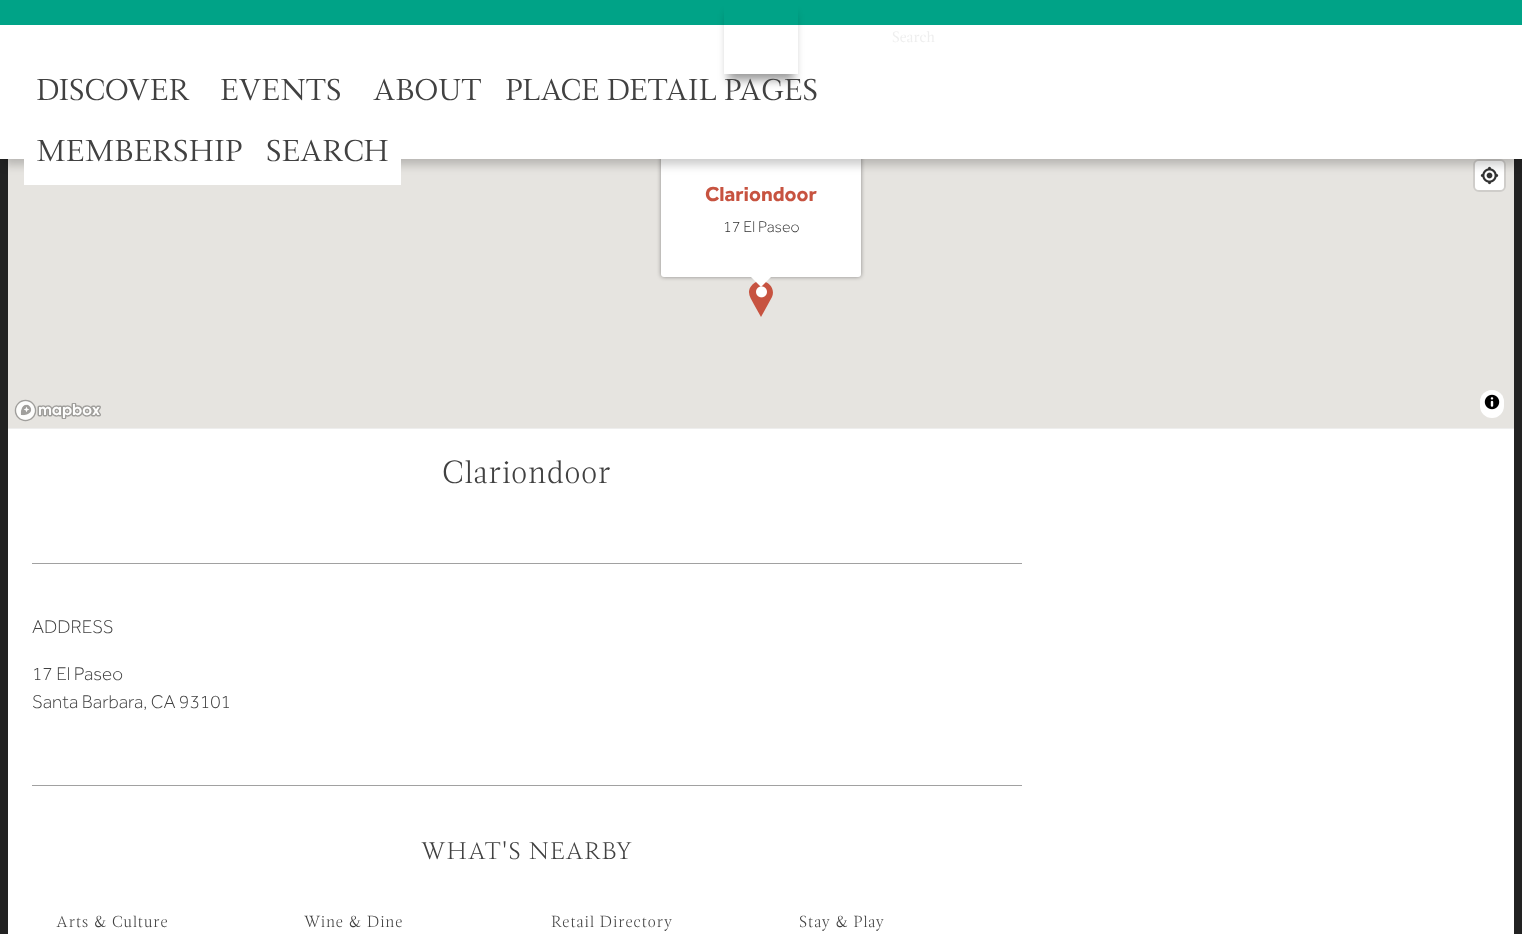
<svg xmlns="http://www.w3.org/2000/svg" width="1522" height="934" viewBox="0 0 1522 934">
  <style>
    .t1 { font: 15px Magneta; fill: #eee; }
    .t2 { font: 30px Magneta; fill: #414141; }
    .t3 { font: bold 21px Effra; fill: #c75340; }
    .t4 { font: 300 16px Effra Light; fill: #333; }
    .t5 { font: 100 32px Magneta; letter-spacing: 1px; fill: #414141; }
    .t6 { font: 300 19px Effra Light; fill: #414141; }
    .t7 { font: 100 24px Magneta; letter-spacing: 1px; fill: #414141; }
    .t8 { font: 100 16px Magneta; letter-spacing: 1px; fill: #414141; }
  </style>
  <defs>
    <clipPath id="clip1"><path d="M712 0H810V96H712ZM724 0H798V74H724Z" clip-rule="evenodd"/></clipPath>
  </defs>
  <rect width="100%" height="100%" fill="#222"/>
  <rect x="0" y="0" width="1522" height="25" fill="#00a387"/>
  <rect x="8" y="159" width="1506" height="269" fill="#e6e4e0"/>
  <rect x="1474" y="160" width="31" height="31" rx="5" fill="none" stroke="#cfcdca" stroke-width="2"/>
  <rect x="1475" y="161" width="29" height="29" rx="4" fill="#fff"/>
  <image x="1480" y="166" width="19" height="19" href="images/1.png"/>
  <path d="M772 297C777 285.5 761.5 275.5 752.5 284.5C745.5 291.5 750.5 298 754 304.5L761 317Z" fill="#c75340"/>
  <rect x="661" y="143" width="200" height="134" rx="3" fill="#00000066" filter="blur(2px)"/>
  <rect x="661" y="143" width="200" height="134" rx="3" fill="#fff"/>
  <rect x="4" y="39" width="1514" height="126" fill="#00000033" filter="blur(5px)"/>
  <rect x="0" y="25" width="1522" height="134" fill="#fff"/>
  <g clip-path="url(#clip1)">
    <rect x="728" y="14" width="66" height="66" fill="#00000066" filter="blur(5px)"/>
  </g>
  <text x="892" y="42" class="t1">Search</text>
  <text x="36" y="100" class="t2">DISCOVER</text>
  <text x="220" y="100" class="t2">EVENTS</text>
  <text x="373" y="100" class="t2">ABOUT</text>
  <text x="505" y="100" class="t2">PLACE DETAIL PAGES</text>
  <rect x="24" y="159" width="377" height="26" fill="#fff"/>
  <text x="36" y="161" class="t2">MEMBERSHIP</text>
  <text x="266" y="161" class="t2">SEARCH</text>
  <rect x="8" y="429" width="1506" height="505" fill="#fff"/>
  <rect x="8" y="428" width="1506" height="1" fill="#eee"/>
  <image x="14" y="399" width="87" height="23" href="images/2.png"/>
  <rect x="1480" y="390" width="24" height="28" rx="12" fill="#fff"/>
  <circle cx="1492" cy="402" r="12" fill="#ffffff80"/>
  <image x="1484" y="394" width="16" height="16" href="images/3.png"/>
  <text x="705" y="201" class="t3">Clariondoor</text>
  <text x="723" y="232" class="t4">17 El Paseo</text>
  <image x="756" y="286" width="11" height="12" href="images/4.png"/>
  <path d="M751 277H771L761 287Z" fill="#fff"/>
  <text x="442" y="483" class="t5">Clariondoor</text>
  <rect x="32" y="563" width="990" height="1" fill="#a1a1a1"/>
  <text x="32" y="633" class="t6">ADDRESS</text>
  <text x="32" y="680" class="t6">17 El Paseo</text>
  <text x="32" y="708" class="t6">Santa Barbara, CA 93101</text>
  <rect x="32" y="785" width="990" height="1" fill="#a1a1a1"/>
  <text x="421" y="859" class="t7">WHAT'S NEARBY</text>
  <text x="56" y="927" class="t8">Arts &amp; Culture</text>
  <text x="304" y="927" class="t8">Wine &amp; Dine</text>
  <text x="551" y="927" class="t8">Retail Directory</text>
  <text x="799" y="927" class="t8">Stay &amp; Play</text>
</svg>
